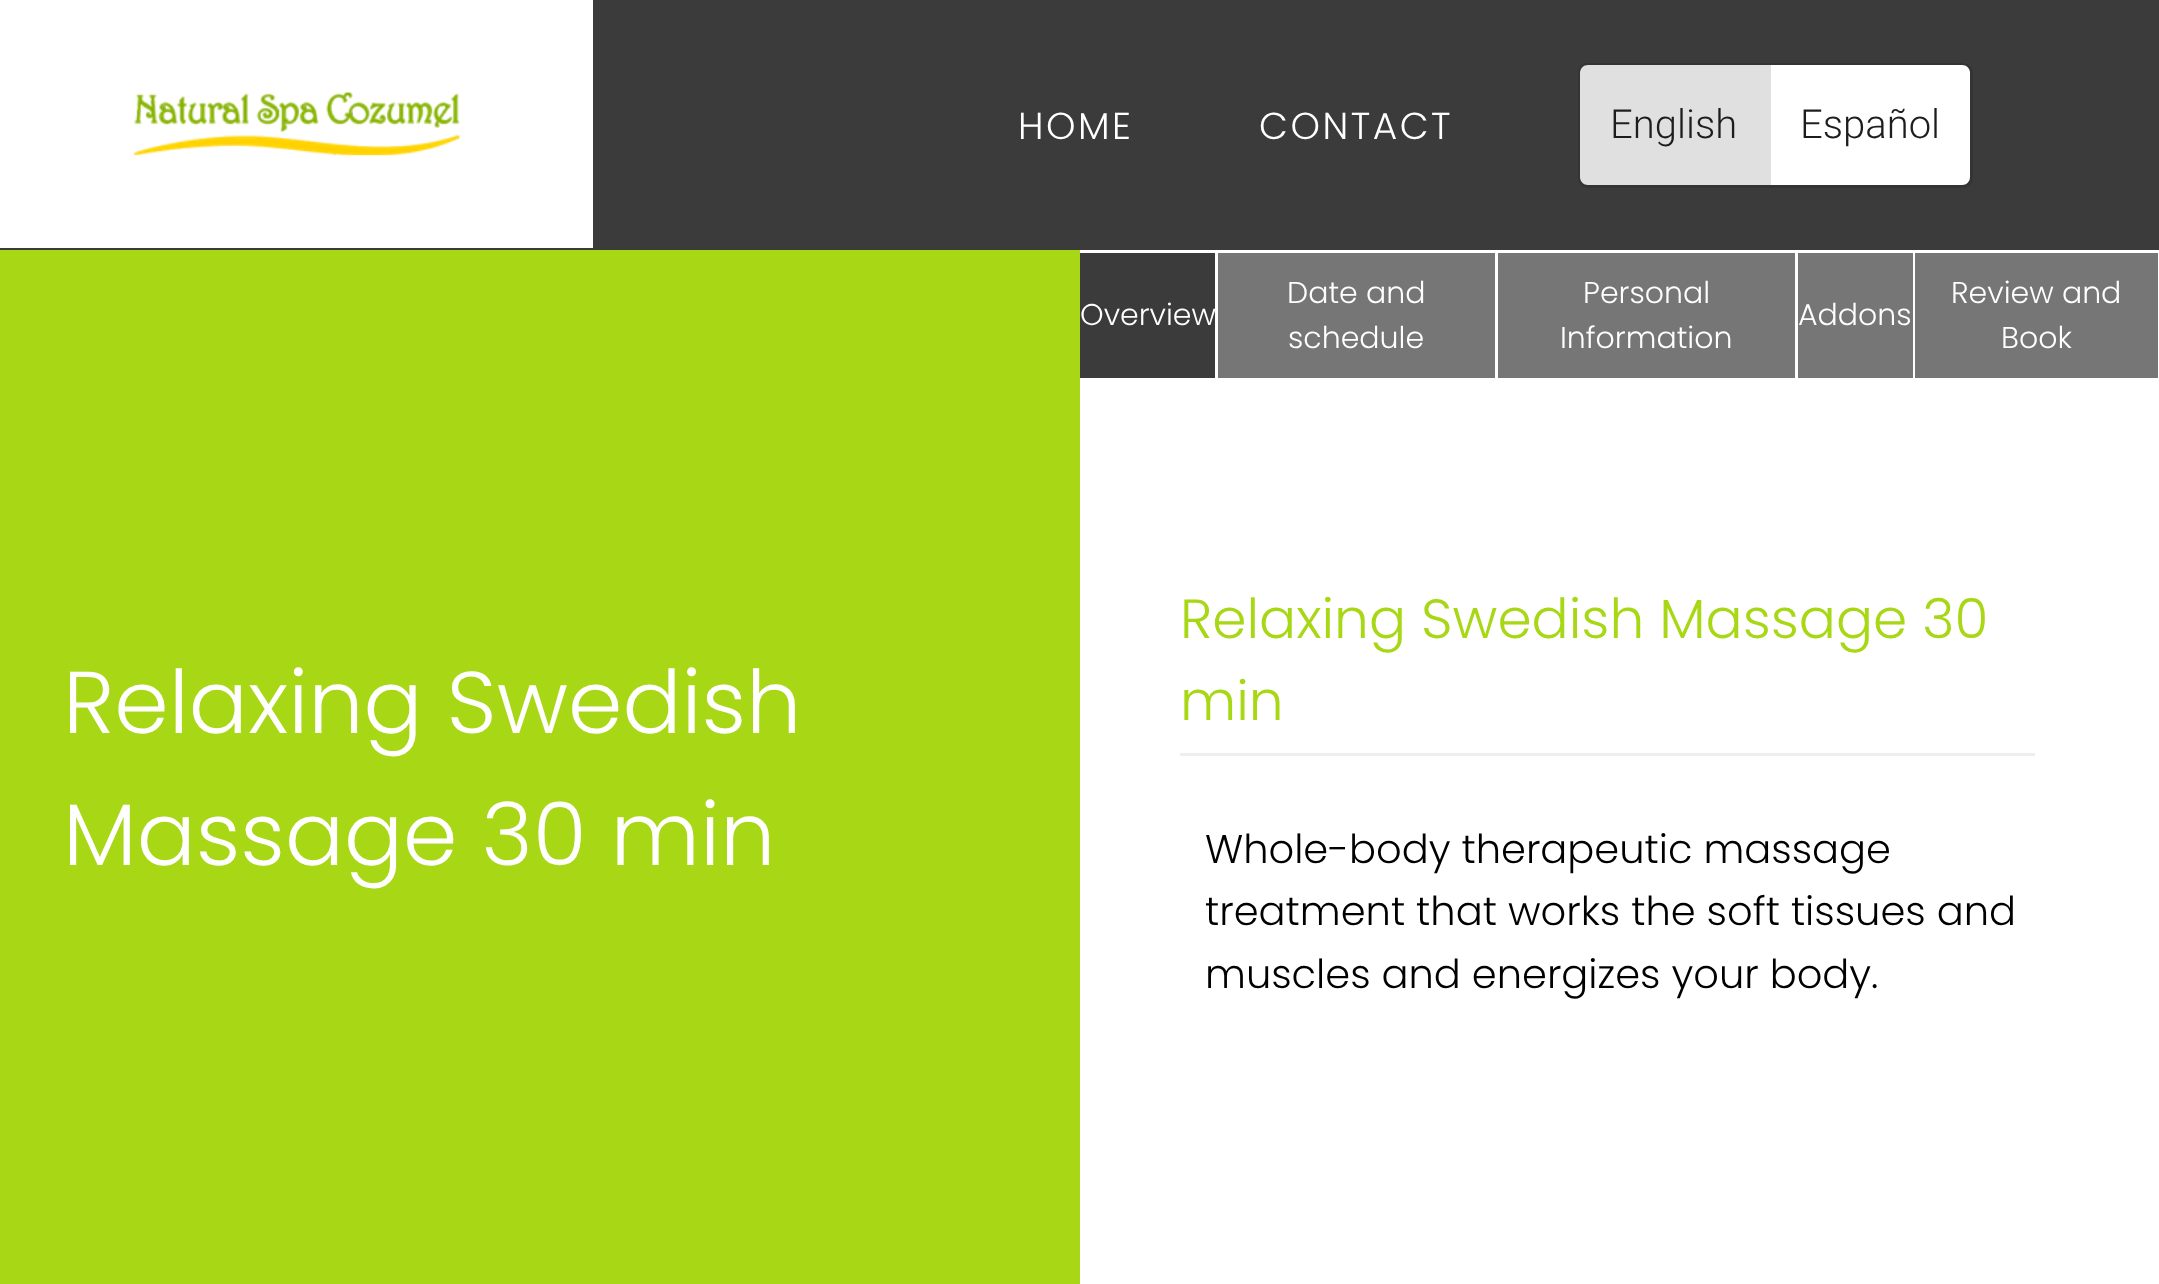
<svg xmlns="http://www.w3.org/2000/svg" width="2159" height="1284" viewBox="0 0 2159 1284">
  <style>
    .t1 { font: 300 37.5px Poppins; letter-spacing: 2.5px; fill: #fff; }
    .t2 { font: 300 40px Roboto; fill: #1d1d1d; }
    .t3 { font: 300 87.5px Poppins; fill: #fff; }
    .t4 { font: 300 30px Poppins; fill: #fff; }
    .t5 { font: 300 55px Poppins; fill: #a8d715; }
    .t6 { font: 300 40px Poppins; fill: #000; }
  </style>
  <rect width="100%" height="100%" fill="#fff"/>
  <rect x="0" y="248" width="593" height="2" fill="#3b3b3b"/>
  <image x="133" y="92" width="327" height="64" href="images/1.png"/>
  <rect x="593" y="0" width="1566" height="250" fill="#3b3b3b"/>
  <text x="1018" y="139" class="t1">HOME</text>
  <text x="1259" y="139" class="t1">CONTACT</text>
  <rect x="1579.5" y="64.5" width="392" height="122" rx="8.5" fill="none" stroke="#343434" stroke-width="3"/>
  <path d="M1588 65H1768V185H1588C1583.5 185 1580 181.5 1580 177V73C1580 68.5 1583.5 65 1588 65Z" fill="#e0e0e0"/>
  <text x="1610" y="138" class="t2">English</text>
  <path d="M1768 65H1962C1966.5 65 1970 68.5 1970 73V177C1970 181.5 1966.5 185 1962 185H1768Z" fill="#fff"/>
  <rect x="1768" y="65" width="3" height="120" fill="#e0e0e0"/>
  <text x="1800" y="138" class="t2">Español</text>
  <rect x="0" y="250" width="1080" height="1034" fill="#a8d715"/>
  <text x="63" y="733" class="t3">Relaxing Swedish</text>
  <text x="63" y="865" class="t3">Massage 30 min</text>
  <rect x="1080" y="253" width="135" height="125" fill="#3b3b3b"/>
  <text x="1080" y="325" class="t4">Overview</text>
  <rect x="1218" y="253" width="277" height="125" fill="#767676"/>
  <text x="1287" y="303" class="t4">Date and</text>
  <text x="1288" y="348" class="t4">schedule</text>
  <rect x="1498" y="253" width="297" height="125" fill="#767676"/>
  <text x="1583" y="303" class="t4">Personal</text>
  <text x="1560" y="348" class="t4">Information</text>
  <rect x="1798" y="253" width="115" height="125" fill="#767676"/>
  <text x="1798" y="325" class="t4">Addons</text>
  <rect x="1915" y="253" width="243" height="125" fill="#767676"/>
  <text x="1951" y="303" class="t4">Review and</text>
  <text x="2001" y="348" class="t4">Book</text>
  <rect x="1180" y="753" width="855" height="3" fill="#eee"/>
  <text x="1180" y="638" class="t5">Relaxing Swedish Massage 30</text>
  <text x="1180" y="720" class="t5">min</text>
  <text x="1205" y="863" class="t6">Whole-body therapeutic massage</text>
  <text x="1205" y="925" class="t6">treatment that works the soft tissues and</text>
  <text x="1205" y="988" class="t6">muscles and energizes your body.</text>
</svg>
